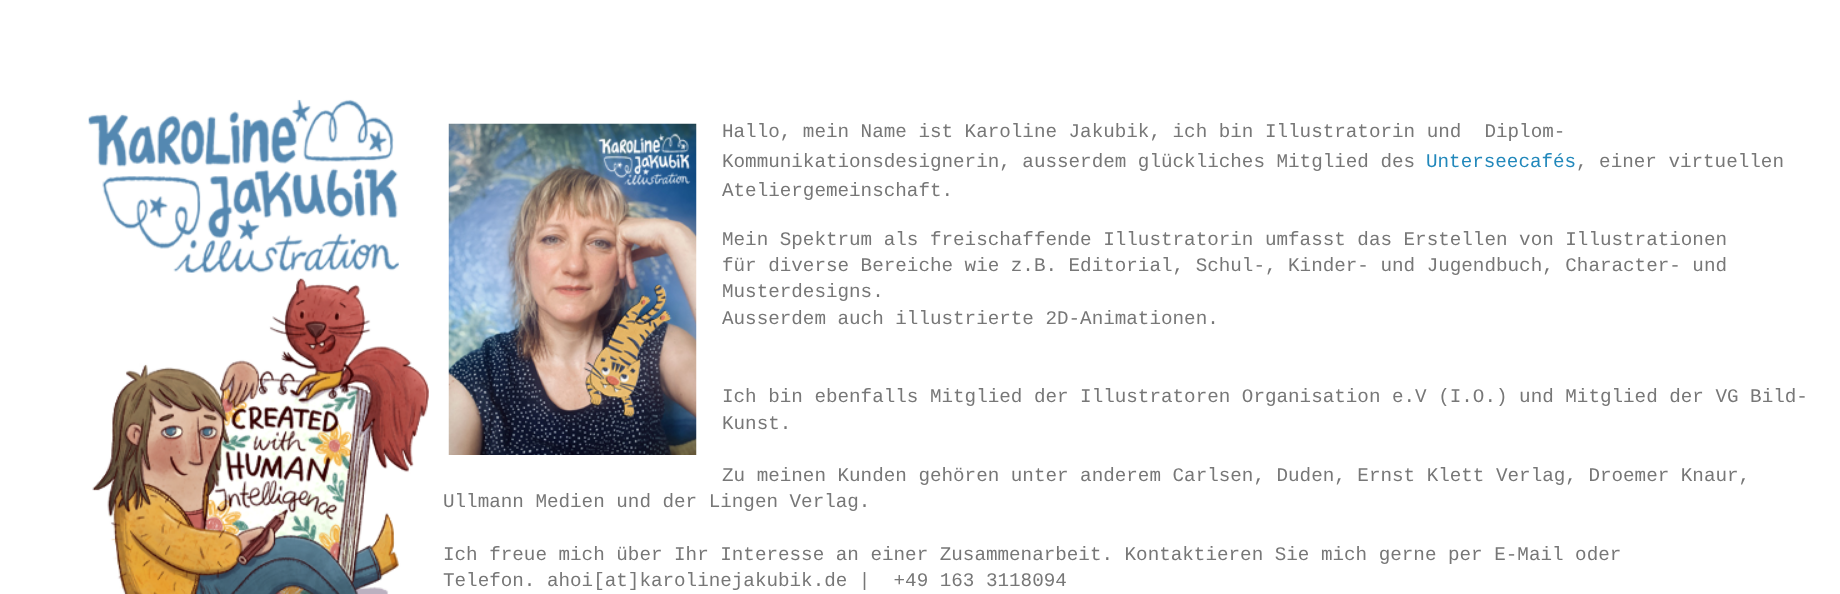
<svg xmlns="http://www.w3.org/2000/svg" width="1840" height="594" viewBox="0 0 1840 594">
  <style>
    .t1 { font: 19.25px Liberation Mono; fill: #777; }
    .t2 { font: 19.25px Liberation Mono; fill: #28b; }
  </style>
  <rect width="100%" height="100%" fill="#fff"/>
  <image x="88" y="99" width="341" height="495" href="images/1.png"/>
  <image x="448" y="123" width="249" height="332" href="images/2.png"/>
  <text x="722" y="137" class="t1" xml:space="preserve">Hallo, mein Name ist Karoline Jakubik, ich bin Illustratorin und  Diplom-</text>
  <text x="722" y="167" class="t1">Kommunikationsdesignerin, ausserdem glückliches Mitglied des</text>
  <text x="1426" y="167" class="t2">Unterseecafés</text>
  <text x="1576" y="167" class="t1">, einer virtuellen</text>
  <text x="722" y="196" class="t1">Ateliergemeinschaft.</text>
  <text x="722" y="245" class="t1">Mein Spektrum als freischaffende Illustratorin umfasst das Erstellen von Illustrationen</text>
  <text x="722" y="271" class="t1">für diverse Bereiche wie z.B. Editorial, Schul-, Kinder- und Jugendbuch, Character- und</text>
  <text x="722" y="297" class="t1">Musterdesigns.</text>
  <text x="722" y="324" class="t1">Ausserdem auch illustrierte 2D-Animationen.</text>
  <text x="722" y="402" class="t1">Ich bin ebenfalls Mitglied der Illustratoren Organisation e.V (I.O.) und Mitglied der VG Bild-</text>
  <text x="722" y="429" class="t1">Kunst.</text>
  <text x="722" y="481" class="t1">Zu meinen Kunden gehören unter anderem Carlsen, Duden, Ernst Klett Verlag, Droemer Knaur,</text>
  <text x="443" y="507" class="t1">Ullmann Medien und der Lingen Verlag.</text>
  <text x="443" y="560" class="t1">Ich freue mich über Ihr Interesse an einer Zusammenarbeit. Kontaktieren Sie mich gerne per E-Mail oder</text>
  <text x="443" y="586" class="t1" xml:space="preserve">Telefon. ahoi[at]karolinejakubik.de |  +49 163 3118094</text>
</svg>
